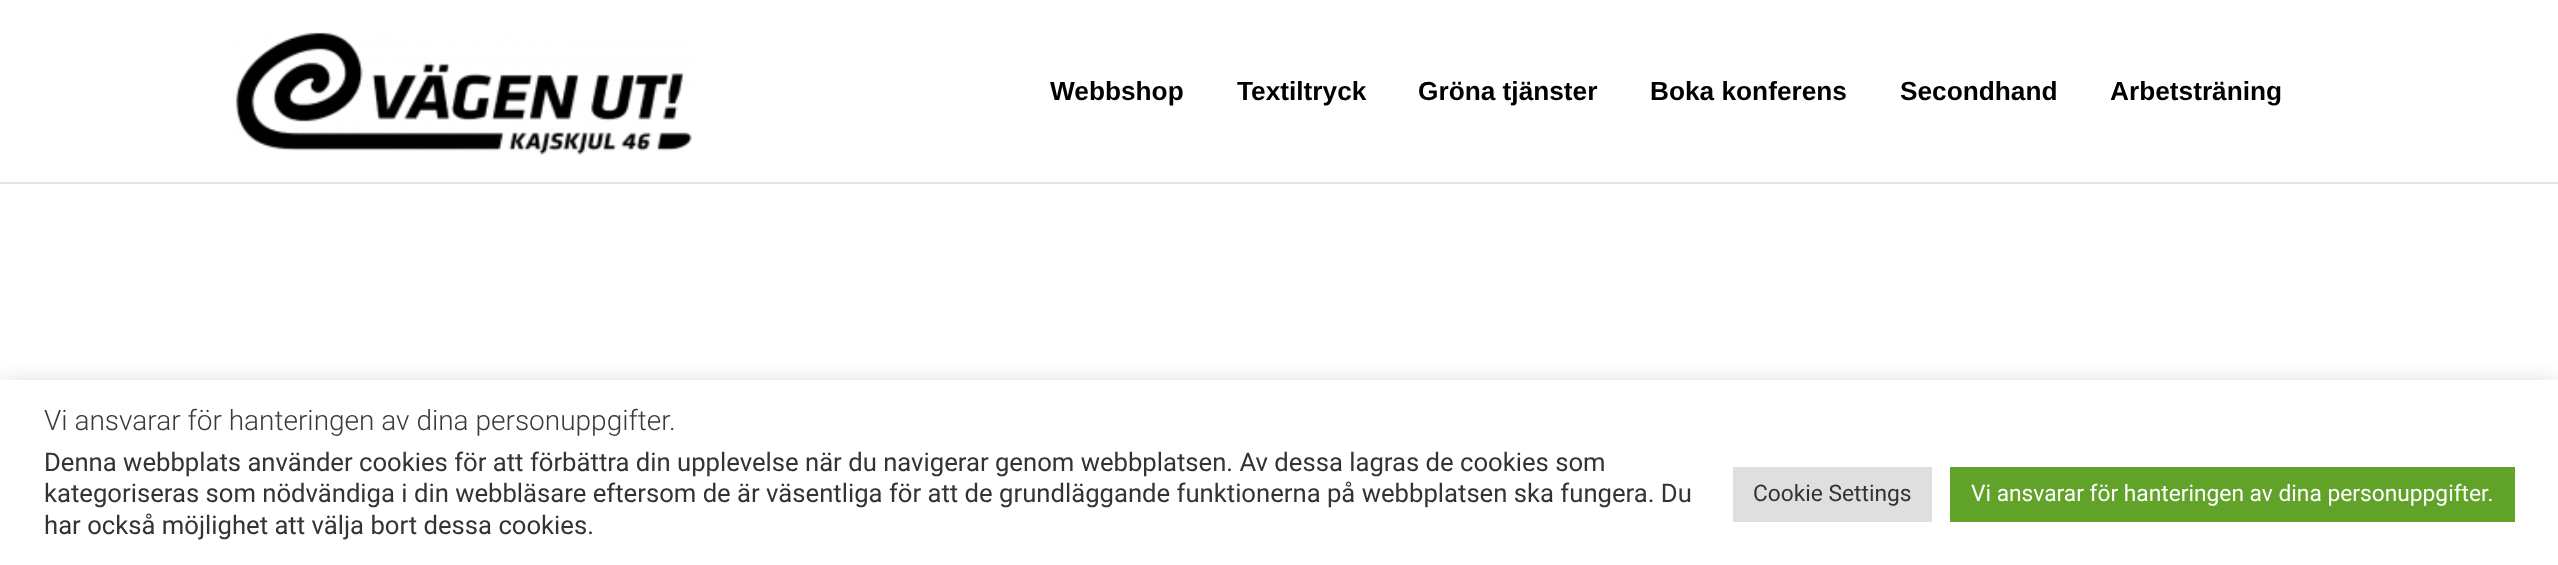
<svg xmlns="http://www.w3.org/2000/svg" width="2558" height="565" viewBox="0 0 2558 565">
  <style>
    .t1 { font: bold 26.25px Liberation Sans; fill: #000; }
    .t2 { font: 300 28px Roboto; fill: #3a3a3a; }
    .t3 { font: 25.67px Roboto; fill: #333; }
    .t4 { font: 22.75px Roboto; fill: #333; }
    .t5 { font: 22.75px Roboto; fill: #fff; }
  </style>
  <rect width="100%" height="100%" fill="#fff"/>
  <rect x="0" y="182" width="2558" height="2" fill="#e5e5e5"/>
  <image x="235" y="32" width="457" height="123" href="images/1.png"/>
  <text x="1050" y="100" class="t1">Webbshop</text>
  <text x="1237" y="100" class="t1">Textiltryck</text>
  <text x="1418" y="100" class="t1">Gröna tjänster</text>
  <text x="1650" y="100" class="t1">Boka konferens</text>
  <text x="1900" y="100" class="t1">Secondhand</text>
  <text x="2110" y="100" class="t1">Arbetsträning</text>
  <rect x="0" y="378" width="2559" height="186" fill="#acabab4d" filter="blur(9px)"/>
  <rect x="0" y="380" width="2558" height="185" fill="#fff"/>
  <text x="44" y="430" class="t2">Vi ansvarar för hanteringen av dina personuppgifter.</text>
  <text x="44" y="471" class="t3">Denna webbplats använder cookies för att förbättra din upplevelse när du navigerar genom webbplatsen. Av dessa lagras de cookies som</text>
  <text x="44" y="502" class="t3">kategoriseras som nödvändiga i din webbläsare eftersom de är väsentliga för att de grundläggande funktionerna på webbplatsen ska fungera. Du</text>
  <text x="44" y="534" class="t3">har också möjlighet att välja bort dessa cookies.</text>
  <rect x="1733" y="467" width="199" height="55" fill="#dedfe0"/>
  <text x="1753" y="501" class="t4">Cookie Settings</text>
  <rect x="1950" y="467" width="565" height="55" fill="#61a229"/>
  <text x="1971" y="501" class="t5">Vi ansvarar för hanteringen av dina personuppgifter.</text>
</svg>
